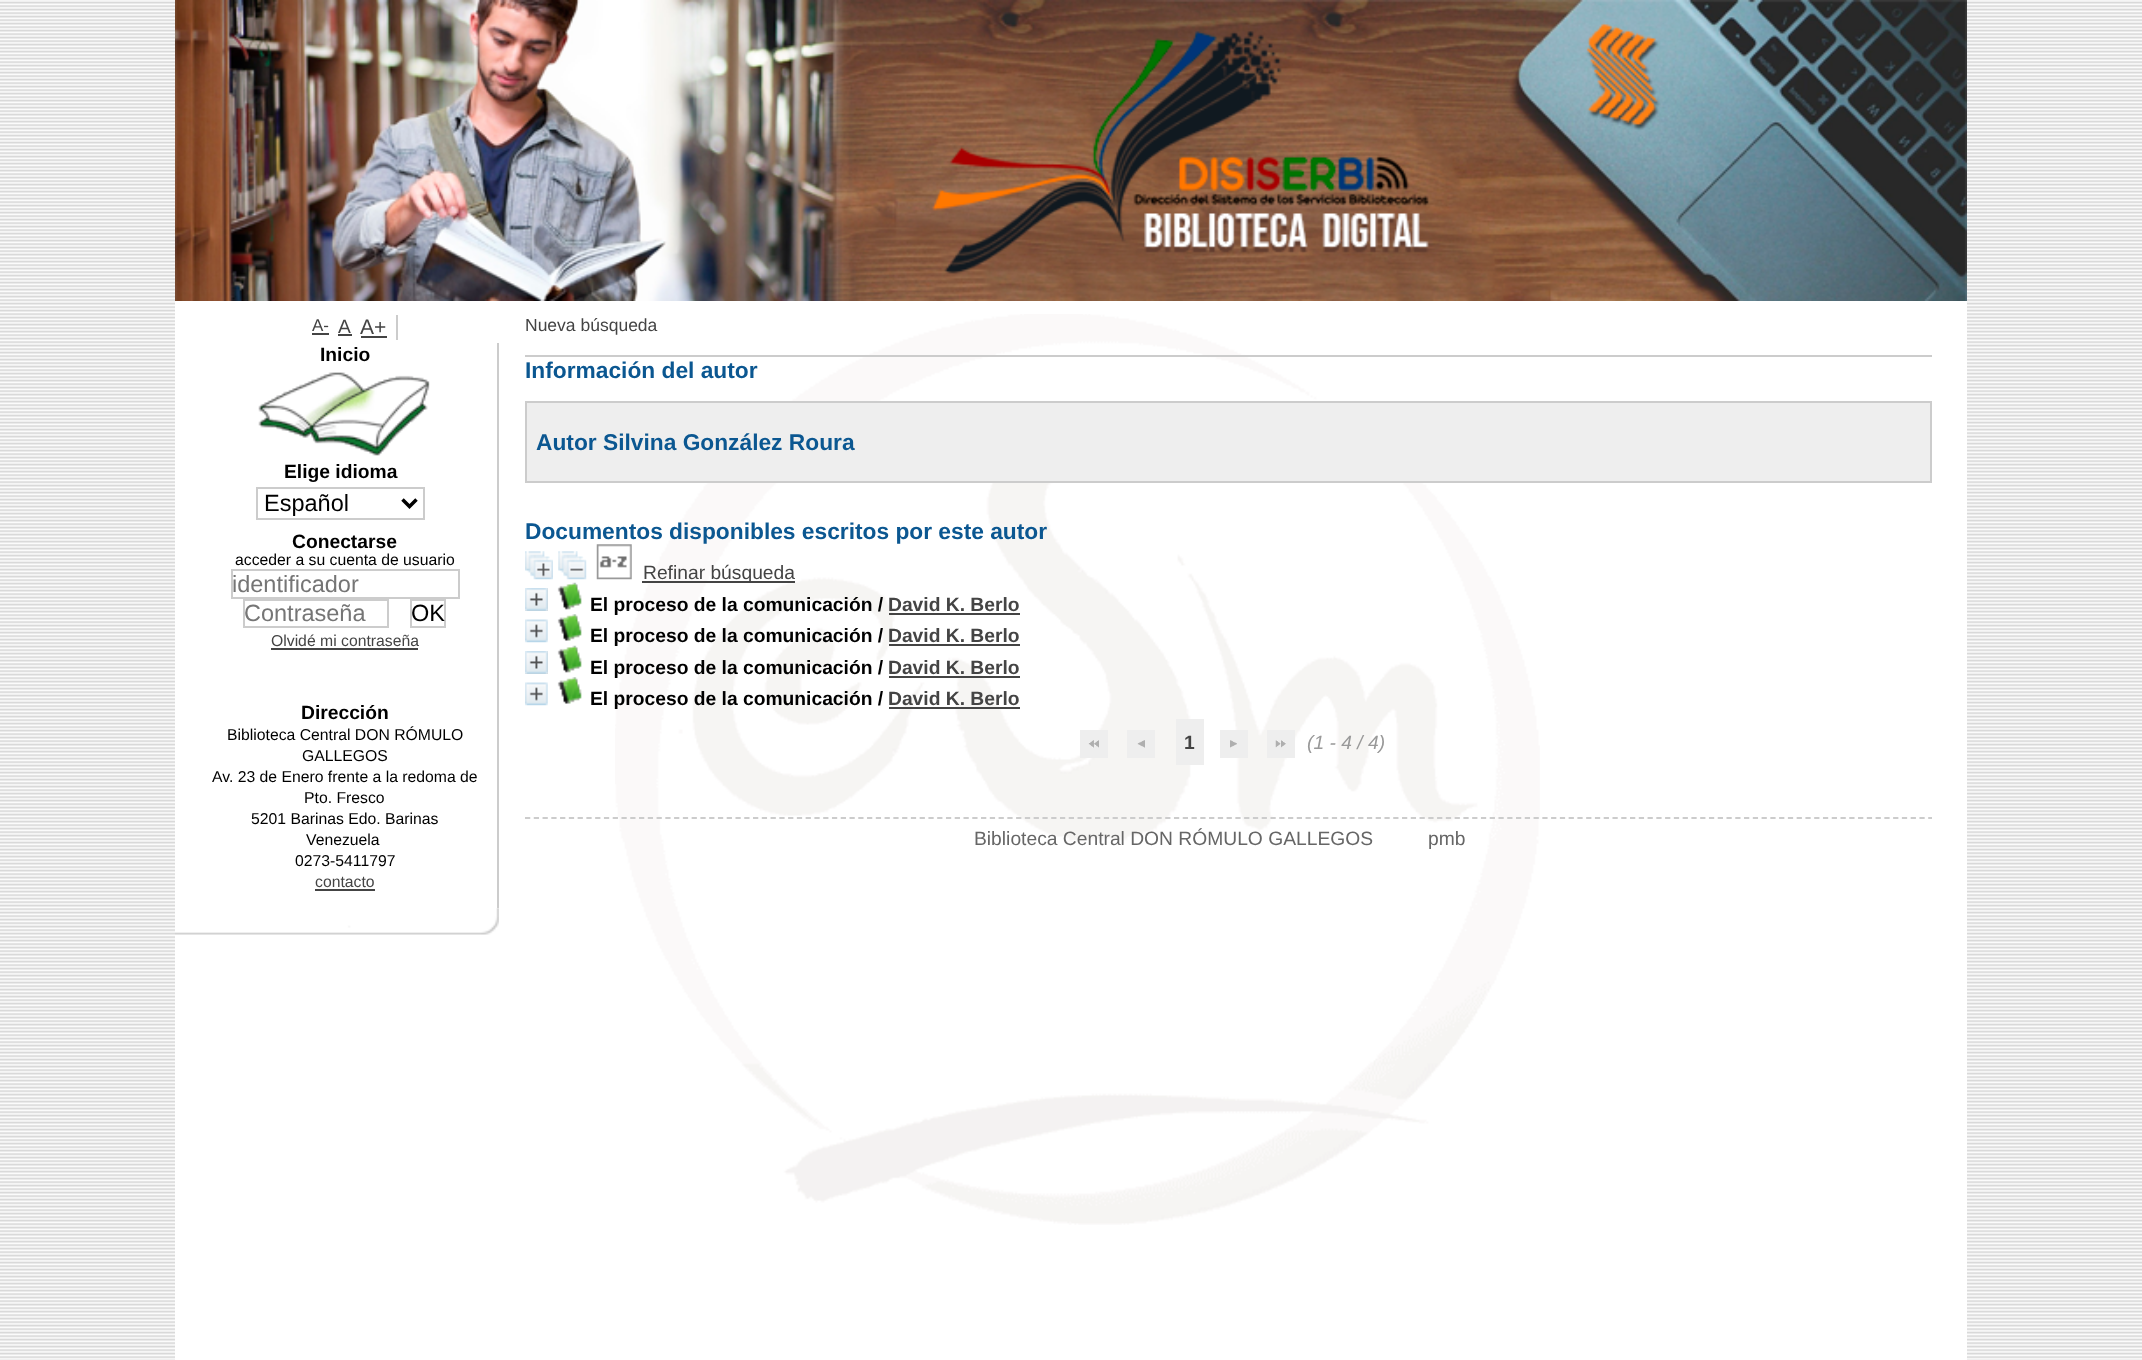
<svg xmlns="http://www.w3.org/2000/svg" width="2142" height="1360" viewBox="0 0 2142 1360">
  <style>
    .t1 { font: 17px Liberation Sans; fill: #444; }
    .t2 { font: 19.25px Liberation Sans; fill: #444; }
    .t3 { font: 21px Liberation Sans; fill: #444; }
    .t4 { font: bold 19.25px Liberation Sans; fill: #000; }
    .t5 { font: 23.5px Liberation Sans; fill: #000; }
    .t6 { font: 15.75px Liberation Sans; fill: #000; }
    .t7 { font: 23.5px Liberation Sans; fill: #757575; }
    .t8 { font: 15.75px Liberation Sans; fill: #444; }
    .t9 { font: 17.5px Liberation Sans; fill: #444; }
    .t10 { font: bold 22.75px Liberation Sans; fill: #0b5791; }
    .t11 { font: bold 19.25px Liberation Sans; fill: #444; }
    .t12 { font: italic 19.25px Liberation Sans; fill: #999; }
    .t13 { font: 19.25px Liberation Sans; fill: #666; }
  </style>
  <rect width="100%" height="100%" fill="#fff"/>
  <image x="0" y="0" width="2142" height="1360" href="images/1.png"/>
  <rect x="175" y="301" width="1792" height="1059" fill="#fff"/>
  <image x="175" y="908" width="324" height="27" href="images/2.png"/>
  <rect x="396" y="315" width="2" height="25" fill="#ccc"/>
  <text x="312" y="331" class="t1">A-</text>
  <rect x="312" y="333" width="17" height="2" fill="#444"/>
  <text x="338" y="333" class="t2">A</text>
  <rect x="338" y="334" width="14" height="2" fill="#444"/>
  <text x="360" y="334" class="t3">A+</text>
  <rect x="361" y="336" width="26" height="2" fill="#444"/>
  <rect x="497" y="343" width="2" height="565" fill="#ccc"/>
  <text x="320" y="361" class="t4">Inicio</text>
  <image x="258" y="372" width="172" height="84" href="images/3.png"/>
  <text x="284" y="478" class="t4">Elige idioma</text>
  <rect x="257" y="488" width="167" height="31" fill="none" stroke="#ccc" stroke-width="2"/>
  <path d="M402.5 499.5L409.5 506.5L416.5 499.5" fill="none" stroke="#000" stroke-width="3.5"/>
  <text x="264" y="511" class="t5">Español</text>
  <text x="292" y="548" class="t4">Conectarse</text>
  <text x="235" y="565" class="t6">acceder a su cuenta de usuario</text>
  <rect x="232" y="570" width="227" height="28" fill="none" stroke="#ccc" stroke-width="2"/>
  <text x="232" y="592" class="t7">identificador</text>
  <rect x="244" y="600" width="144" height="27" fill="none" stroke="#ccc" stroke-width="2"/>
  <text x="244" y="621" class="t7">Contraseña</text>
  <rect x="411" y="600" width="34" height="27" fill="none" stroke="#ccc" stroke-width="2"/>
  <text x="411" y="621" class="t5">OK</text>
  <text x="271" y="646" class="t8">Olvidé mi contraseña</text>
  <rect x="271" y="648" width="147" height="2" fill="#444"/>
  <text x="301" y="719" class="t4">Dirección</text>
  <text x="227" y="740" class="t6">Biblioteca Central DON RÓMULO</text>
  <text x="302" y="761" class="t6">GALLEGOS</text>
  <text x="212" y="782" class="t6">Av. 23 de Enero frente a la redoma de</text>
  <text x="304" y="803" class="t6">Pto. Fresco</text>
  <text x="251" y="824" class="t6">5201 Barinas Edo. Barinas</text>
  <text x="306" y="845" class="t6">Venezuela</text>
  <text x="295" y="866" class="t6">0273-5411797</text>
  <text x="315" y="887" class="t8">contacto</text>
  <rect x="315" y="889" width="60" height="2" fill="#444"/>
  <image x="615" y="314" width="925" height="911" href="images/4.png"/>
  <image x="175" y="0" width="1792" height="301" href="images/5.png"/>
  <rect x="525" y="355" width="1407" height="2" fill="#ccc"/>
  <text x="525" y="331" class="t9">Nueva búsqueda</text>
  <text x="525" y="378" class="t10">Información del autor</text>
  <rect x="526" y="402" width="1405" height="80" fill="#eee" stroke="#ccc" stroke-width="2"/>
  <text x="536" y="450" class="t10">Autor Silvina González Roura</text>
  <text x="525" y="539" class="t10">Documentos disponibles escritos por este autor</text>
  <image x="525" y="551" width="28" height="29" href="images/6.png"/>
  <image x="558" y="551" width="29" height="29" href="images/7.png"/>
  <image x="596" y="544" width="36" height="36" href="images/8.png"/>
  <rect x="642" y="581" width="153" height="2" fill="#444"/>
  <text x="643" y="579" class="t2">Refinar búsqueda</text>
  <rect x="525" y="588" width="23" height="23" fill="#ccc"/>
  <image x="557" y="582" width="25" height="28" href="images/9.png"/>
  <image x="525" y="588" width="23" height="23" href="images/10.png"/>
  <text x="590" y="611" class="t4">El proceso de la comunicación /</text>
  <text x="888" y="611" class="t11">David K. Berlo</text>
  <rect x="889" y="613" width="131" height="2" fill="#444"/>
  <image x="525" y="619" width="23" height="24" href="images/11.png"/>
  <image x="557" y="614" width="25" height="27" href="images/12.png"/>
  <text x="590" y="642" class="t4">El proceso de la comunicación /</text>
  <text x="888" y="642" class="t11">David K. Berlo</text>
  <rect x="889" y="644" width="131" height="2" fill="#444"/>
  <rect x="525" y="651" width="23" height="23" fill="#ccc"/>
  <image x="557" y="645" width="25" height="28" href="images/9.png"/>
  <image x="525" y="651" width="23" height="23" href="images/10.png"/>
  <text x="590" y="674" class="t4">El proceso de la comunicación /</text>
  <text x="888" y="674" class="t11">David K. Berlo</text>
  <rect x="889" y="676" width="131" height="2" fill="#444"/>
  <image x="525" y="682" width="23" height="24" href="images/11.png"/>
  <image x="557" y="677" width="25" height="27" href="images/12.png"/>
  <text x="590" y="705" class="t4">El proceso de la comunicación /</text>
  <text x="888" y="705" class="t11">David K. Berlo</text>
  <rect x="889" y="707" width="131" height="2" fill="#444"/>
  <rect x="1080" y="730" width="28" height="28" fill="#eee"/>
  <image x="1088" y="740" width="11" height="8" href="images/13.png"/>
  <rect x="1127" y="730" width="28" height="28" fill="#eee"/>
  <image x="1137" y="740" width="8" height="8" href="images/14.png"/>
  <rect x="1176" y="719" width="28" height="46" fill="#eee"/>
  <text x="1184" y="749" class="t11">1</text>
  <rect x="1220" y="730" width="28" height="28" fill="#eee"/>
  <image x="1230" y="740" width="7" height="8" href="images/15.png"/>
  <rect x="1267" y="730" width="28" height="28" fill="#eee"/>
  <image x="1275" y="740" width="11" height="8" href="images/16.png"/>
  <text x="1307" y="749" class="t12">(1 - 4 / 4)</text>
  <path d="M525 818H1932" fill="none" stroke="#ccc" stroke-width="1.8" stroke-dasharray="5.25 3.52"/>
  <text x="974" y="845" class="t13">Biblioteca Central DON RÓMULO GALLEGOS</text>
  <text x="1428" y="845" class="t13">pmb</text>
</svg>
